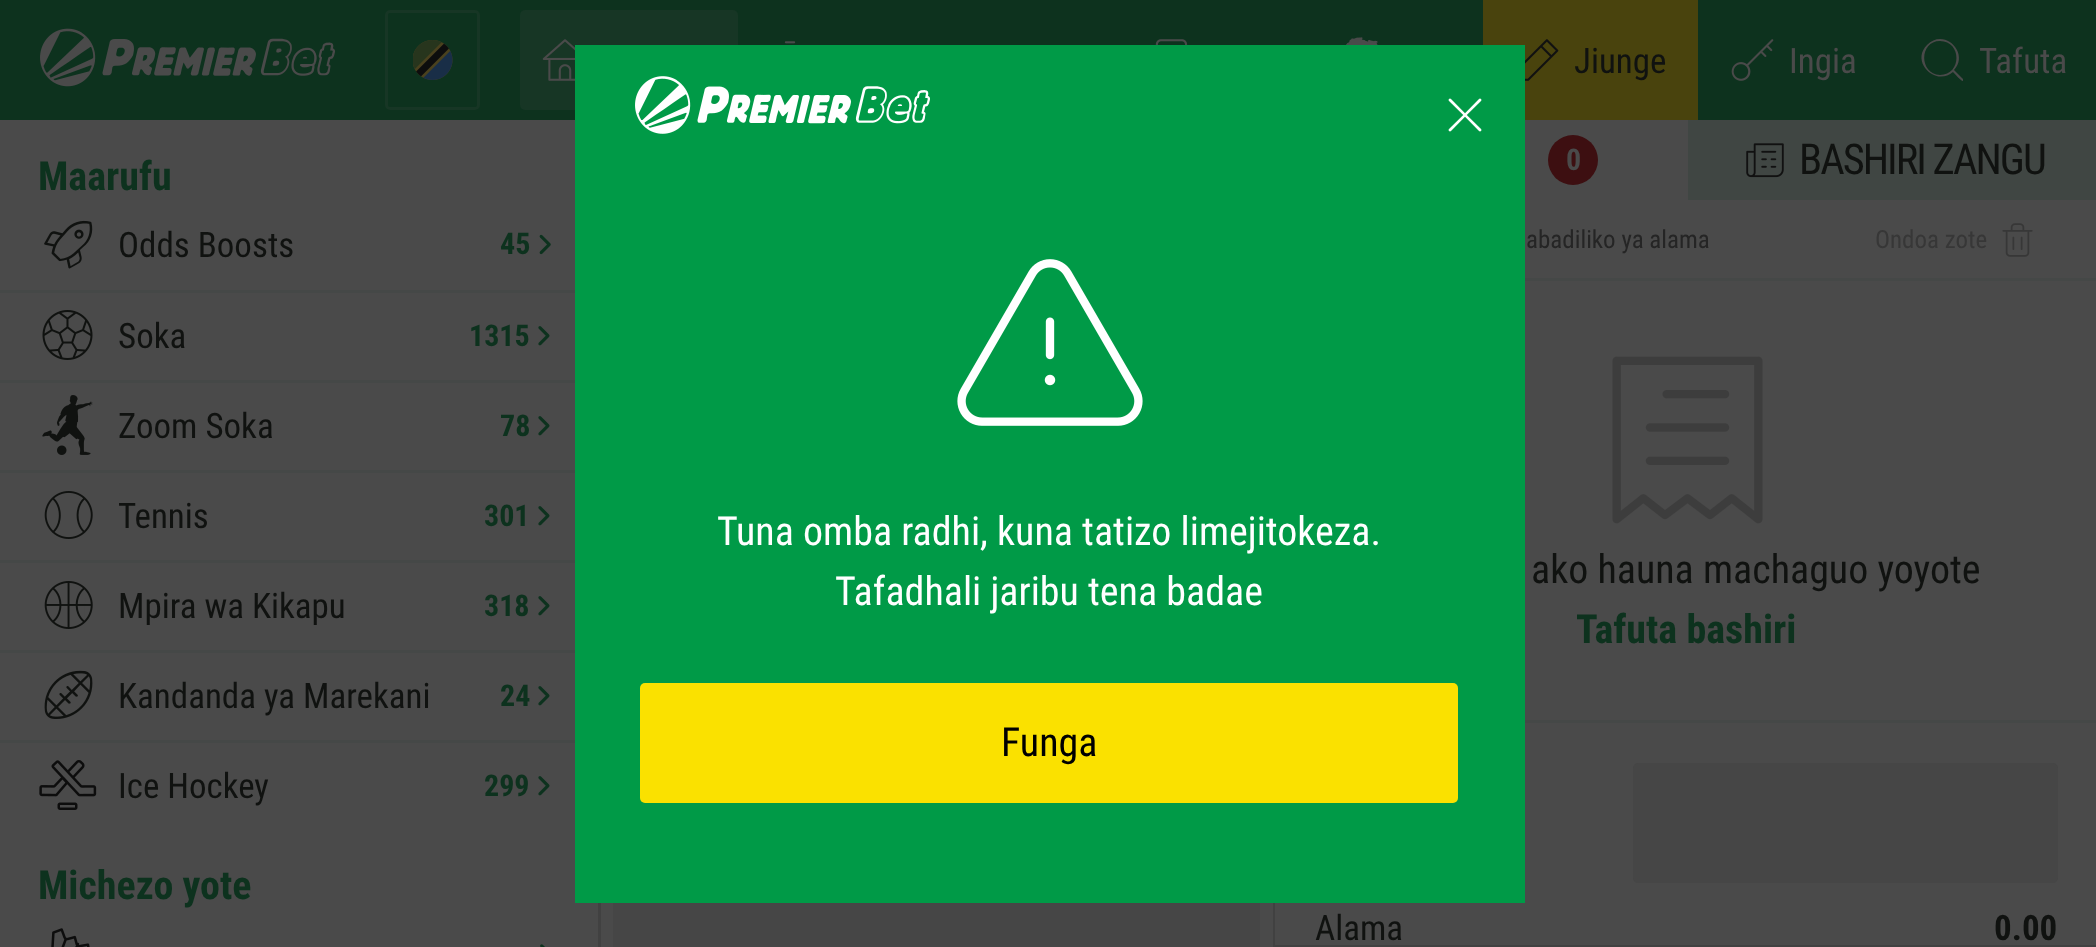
<svg xmlns="http://www.w3.org/2000/svg" width="2096" height="947" viewBox="0 0 2096 947">
  <style>
    .t1 { font: 35px Roboto Condensed; fill: #101210; }
    .t2 { font: 35px Roboto Condensed; fill: #4a4a4a; }
    .t3 { font: bold 40px Roboto Condensed; fill: #0d321e; }
    .t4 { font: bold 30px Roboto Condensed; fill: #0d321e; }
    .t5 { font: bold 30px Roboto Condensed; fill: #4a4a4a; }
    .t6 { font: 42.5px Roboto Condensed; letter-spacing: -2px; fill: #101210; }
    .t7 { font: 25px Roboto Condensed; fill: #252525; }
    .t8 { font: 25px Roboto Condensed; fill: #373737; }
    .t9 { font: 40px Roboto Condensed; fill: #101210; }
    .t10 { font: bold 35px Roboto Condensed; fill: #101210; }
    .t11 { font: 40px Roboto Condensed; fill: #fff; }
    .t12 { font: 40px Roboto Condensed; fill: #000; }
  </style>
  <rect width="100%" height="100%" fill="#4a4a4a"/>
  <rect x="0" y="0" width="2096" height="120" fill="#0d321e"/>
  <image x="40" y="28" width="295" height="59" href="images/1.png"/>
  <rect x="386.5" y="11.5" width="92" height="97" rx="3.5" fill="none" stroke="#173625" stroke-width="3"/>
  <image x="413" y="40" width="40" height="40" href="images/2.png"/>
  <rect x="520" y="10" width="218" height="100" rx="5" fill="#173625"/>
  <image x="542" y="39" width="33" height="42" href="images/3.png"/>
  <image x="784" y="41" width="12" height="3" href="images/4.png"/>
  <image x="1155" y="39" width="33" height="6" href="images/5.png"/>
  <image x="1346" y="37" width="32" height="8" href="images/6.png"/>
  <rect x="1483" y="0" width="215" height="120" fill="#49430d"/>
  <image x="1525" y="39" width="34" height="42" href="images/7.png"/>
  <text x="1574" y="73" class="t1">Jiunge</text>
  <image x="1731" y="39" width="43" height="42" href="images/8.png"/>
  <text x="1789" y="73" class="t2">Ingia</text>
  <path d="M1963 79L1954 70C1970 53 1944 27 1927 45C1910 62 1936 87 1953 72C1954 73 1962 82 1963 81ZM1940 75C1919 74 1919 41 1940 41C1962 41 1962 75 1940 75Z" fill="#4a4a4a"/>
  <text x="1979" y="73" class="t2">Tafuta</text>
  <rect x="598" y="903" width="3" height="44" fill="#414141"/>
  <text x="38" y="190" class="t3">Maarufu</text>
  <image x="44" y="220" width="49" height="49" href="images/9.png"/>
  <text x="118" y="257" class="t1">Odds Boosts</text>
  <text x="500" y="254" class="t4">45</text>
  <image x="539" y="234" width="12" height="21" href="images/10.png"/>
  <rect x="0" y="290" width="575" height="3" fill="#454847"/>
  <image x="42" y="310" width="51" height="50" href="images/11.png"/>
  <text x="118" y="348" class="t1">Soka</text>
  <text x="469" y="346" class="t4">1315</text>
  <image x="538" y="326" width="12" height="20" href="images/12.png"/>
  <rect x="0" y="380" width="575" height="3" fill="#454847"/>
  <image x="42" y="395" width="51" height="60" href="images/13.png"/>
  <text x="118" y="438" class="t1">Zoom Soka</text>
  <text x="500" y="436" class="t4">78</text>
  <image x="538" y="416" width="12" height="20" href="images/12.png"/>
  <rect x="0" y="470" width="575" height="3" fill="#454847"/>
  <image x="44" y="491" width="49" height="48" href="images/14.png"/>
  <text x="118" y="528" class="t1">Tennis</text>
  <text x="484" y="526" class="t4">301</text>
  <image x="538" y="506" width="12" height="20" href="images/12.png"/>
  <rect x="0" y="560" width="575" height="3" fill="#454847"/>
  <image x="44" y="581" width="49" height="48" href="images/15.png"/>
  <text x="118" y="618" class="t1">Mpira wa Kikapu</text>
  <text x="484" y="616" class="t4">318</text>
  <image x="538" y="596" width="12" height="20" href="images/12.png"/>
  <rect x="0" y="650" width="575" height="3" fill="#454847"/>
  <image x="44" y="670" width="49" height="49" href="images/16.png"/>
  <text x="118" y="708" class="t1">Kandanda ya Marekani</text>
  <text x="500" y="706" class="t4">24</text>
  <image x="538" y="686" width="12" height="20" href="images/12.png"/>
  <rect x="0" y="740" width="575" height="3" fill="#454847"/>
  <image x="39" y="760" width="58" height="50" href="images/17.png"/>
  <text x="118" y="798" class="t1">Ice Hockey</text>
  <text x="484" y="796" class="t4">299</text>
  <image x="538" y="776" width="12" height="20" href="images/12.png"/>
  <text x="38" y="899" class="t3">Michezo yote</text>
  <image x="51" y="928" width="39" height="19" href="images/18.png"/>
  <image x="540" y="944" width="5" height="3" href="images/19.png"/>
  <rect x="1273" y="903" width="2" height="44" fill="#414141"/>
  <circle cx="1573" cy="160" r="25" fill="#3d0f11"/>
  <text x="1566" y="170" class="t5">0</text>
  <rect x="1688" y="120" width="408" height="80" fill="#404643"/>
  <image x="1746" y="143" width="38" height="35" href="images/20.png"/>
  <text x="1799" y="174" class="t6">BASHIRI ZANGU</text>
  <rect x="1275" y="945" width="821" height="2" fill="#414141"/>
  <rect x="1525" y="278" width="571" height="3" fill="#454847"/>
  <text x="1526" y="248" class="t7">abadiliko ya alama</text>
  <text x="1875" y="248" class="t8">Ondoa zote</text>
  <image x="2002" y="223" width="31" height="34" href="images/21.png"/>
  <image x="1612" y="356" width="151" height="168" href="images/22.png"/>
  <text x="1531" y="583" class="t9">ako hauna machaguo yoyote</text>
  <text x="1576" y="643" class="t3">Tafuta bashiri</text>
  <rect x="1525" y="720" width="571" height="3" fill="#454847"/>
  <rect x="1633" y="763" width="425" height="120" rx="5" fill="#464646"/>
  <text x="1315" y="940" class="t1">Alama</text>
  <text x="1994" y="940" class="t10">0.00</text>
  <rect x="613" y="903" width="647" height="44" fill="#464646"/>
  <rect x="575" y="45" width="950" height="858" fill="#009a47"/>
  <image x="635" y="76" width="295" height="58" href="images/23.png"/>
  <image x="1448" y="98" width="34" height="34" href="images/24.png"/>
  <image x="957" y="259" width="186" height="167" href="images/25.png"/>
  <text x="717" y="545" class="t11">Tuna omba radhi, kuna tatizo limejitokeza.</text>
  <text x="835" y="605" class="t11">Tafadhali jaribu tena badae</text>
  <rect x="640" y="683" width="818" height="120" rx="5" fill="#fae100"/>
  <text x="1001" y="756" class="t12">Funga</text>
</svg>
